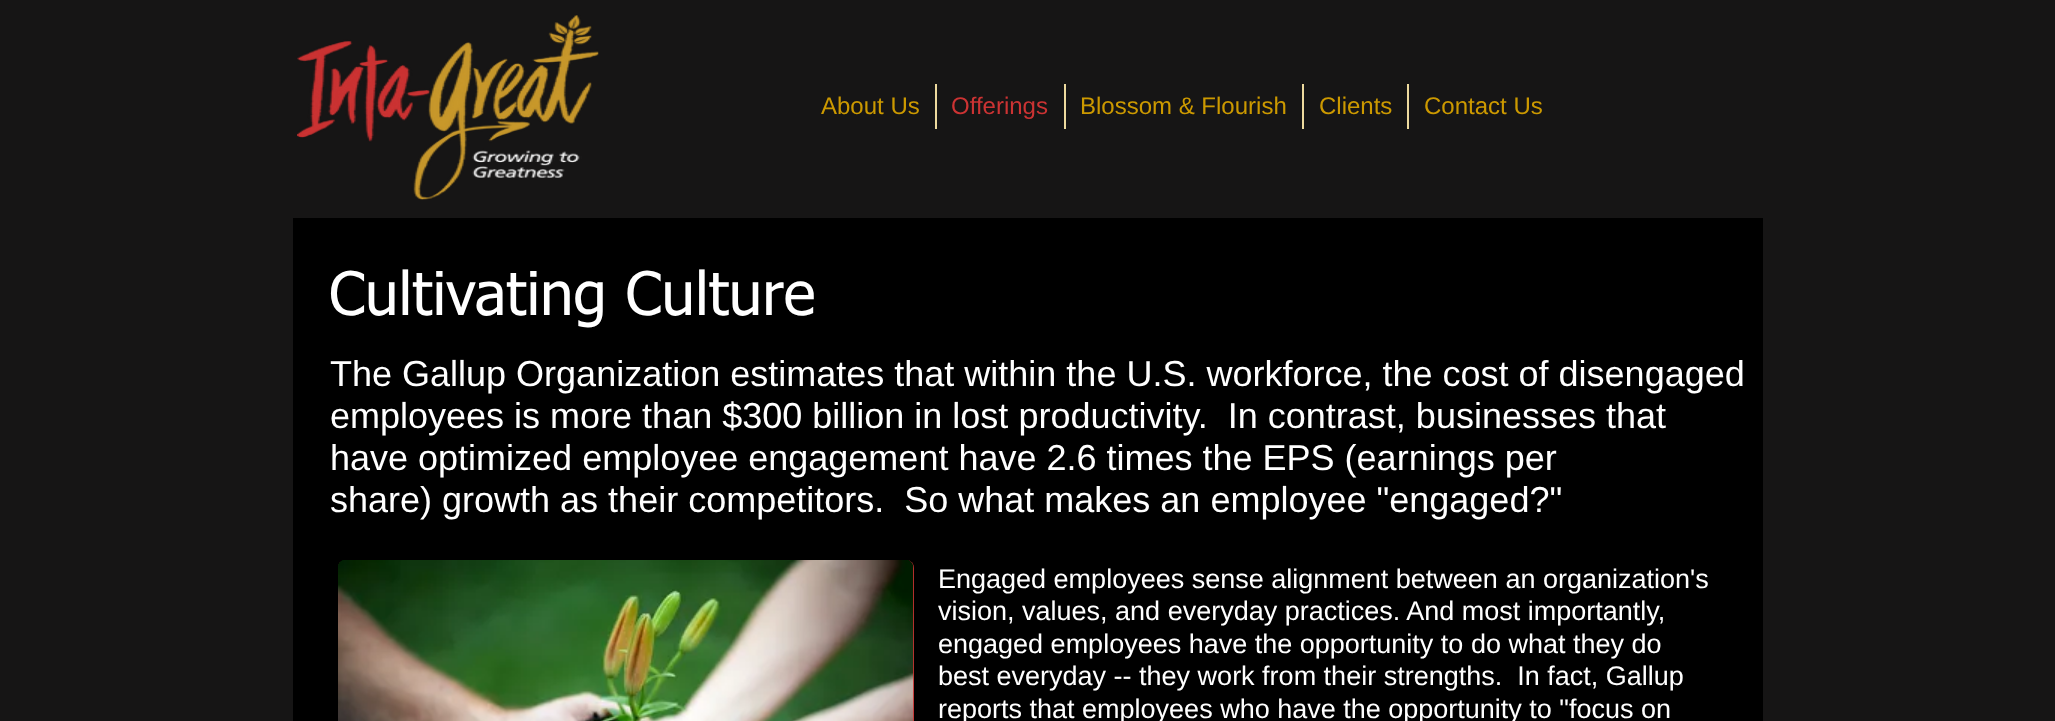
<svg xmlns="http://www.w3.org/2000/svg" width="2055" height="721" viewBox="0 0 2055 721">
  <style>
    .t1 { font: 24px Liberation Sans; fill: #c90; }
    .t2 { font: 24px Liberation Sans; fill: #c33; }
    .t3 { font: 60px tahoma; fill: #fff; }
    .t4 { font: 36px Liberation Sans; fill: #fff; }
    .t5 { font: 27px Liberation Sans; fill: #fff; }
  </style>
  <rect width="100%" height="100%" fill="#161515"/>
  <image x="297" y="15" width="302" height="185" href="images/1.png"/>
  <text x="821" y="114" class="t1">About Us</text>
  <rect x="935" y="84" width="2" height="45" fill="#edda9e"/>
  <text x="951" y="114" class="t2">Offerings</text>
  <rect x="1064" y="84" width="2" height="45" fill="#edda9e"/>
  <text x="1080" y="114" class="t1">Blossom &amp; Flourish</text>
  <rect x="1302" y="84" width="2" height="45" fill="#edda9e"/>
  <text x="1319" y="114" class="t1">Clients</text>
  <rect x="1407" y="84" width="2" height="45" fill="#edda9e"/>
  <text x="1424" y="114" class="t1">Contact Us</text>
  <rect x="293" y="218" width="1470" height="503" fill="#000"/>
  <text x="329" y="315" class="t3">Cultivating Culture</text>
  <text x="330" y="386" class="t4">The Gallup Organization estimates that within the U.S. workforce, the cost of disengaged</text>
  <text x="330" y="428" class="t4" xml:space="preserve">employees is more than $300 billion in lost productivity.  In contrast, businesses that</text>
  <text x="330" y="470" class="t4">have optimized employee engagement have 2.6 times the EPS (earnings per</text>
  <text x="330" y="512" class="t4" xml:space="preserve">share) growth as their competitors.  So what makes an employee "engaged?"</text>
  <rect x="338" y="560" width="576" height="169" rx="8" fill="#c33"/>
  <image x="338" y="560" width="576" height="161" href="images/2.png"/>
  <text x="938" y="588" class="t5">Engaged employees sense alignment between an organization's</text>
  <text x="938" y="620" class="t5">vision, values, and everyday practices. And most importantly,</text>
  <text x="938" y="653" class="t5">engaged employees have the opportunity to do what they do</text>
  <text x="938" y="685" class="t5" xml:space="preserve">best everyday -- they work from their strengths.  In fact, Gallup</text>
  <text x="938" y="718" class="t5">reports that employees who have the opportunity to "focus on</text>
</svg>
